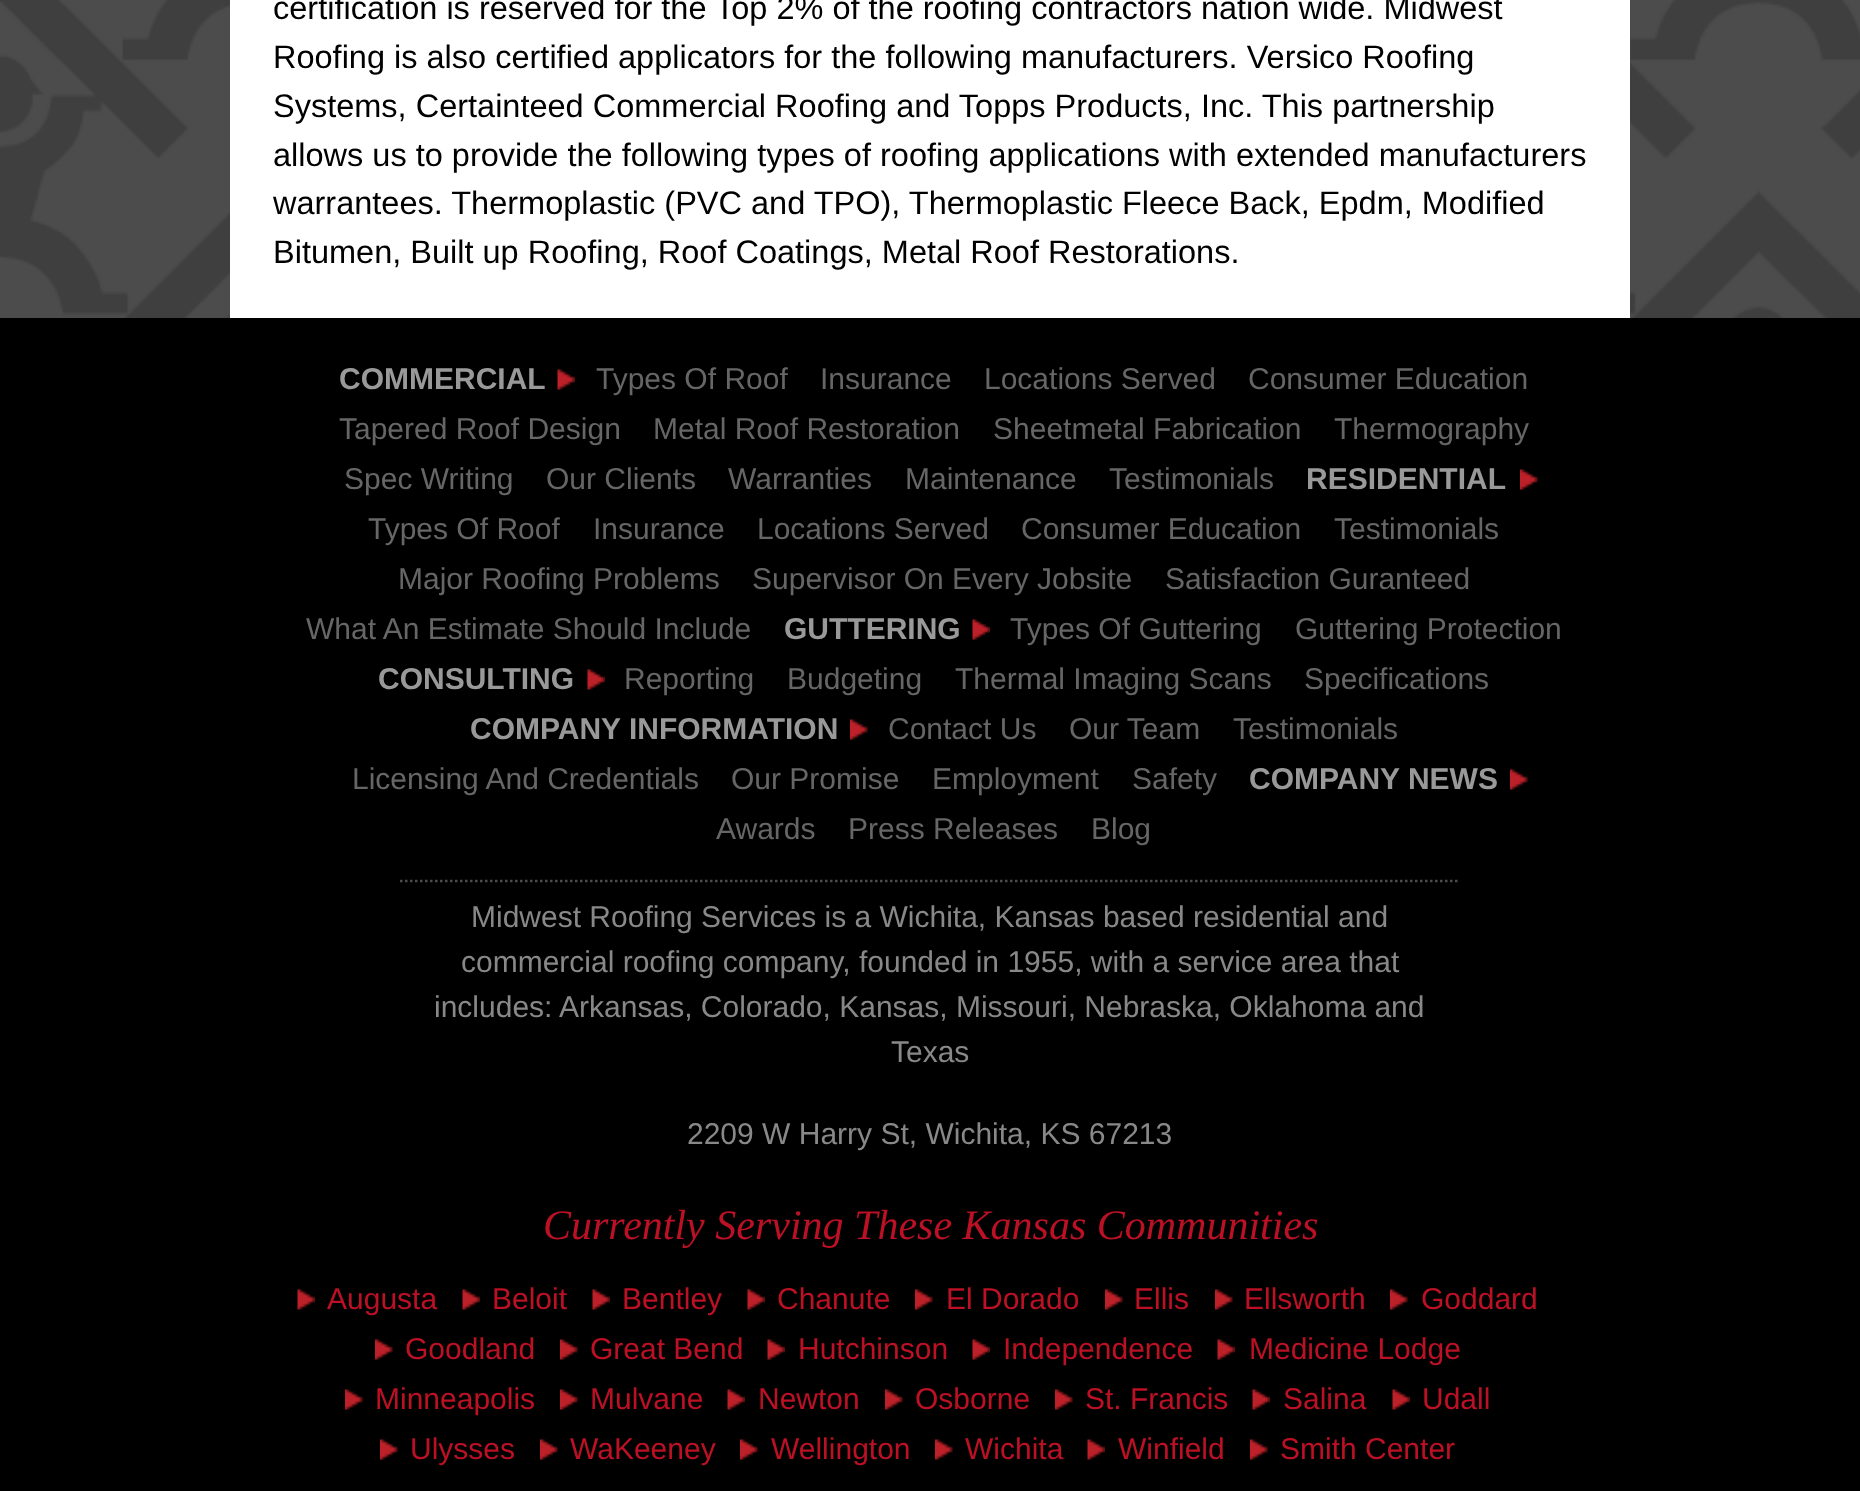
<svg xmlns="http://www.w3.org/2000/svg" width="1860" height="1491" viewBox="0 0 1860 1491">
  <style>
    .t1 { font: 32.5px Liberation Sans; fill: #000; }
    .t2 { font: 30px Liberation Sans; fill: #666; }
    .t3 { font: bold 30px Liberation Sans; fill: #999; }
    .t4 { font: 30px Liberation Sans; fill: #888; }
    .t5 { font: italic 42px Liberation Serif; fill: #bc1125; }
    .t6 { font: 30px Liberation Sans; fill: #bc1125; }
  </style>
  <rect width="100%" height="100%" fill="#fff"/>
  <image x="0" y="0" width="1860" height="318" href="images/1.png"/>
  <rect x="230" y="0" width="1400" height="318" fill="#fff"/>
  <text x="273" y="19" class="t1">certification is reserved for the Top 2% of the roofing contractors nation wide. Midwest</text>
  <text x="273" y="68" class="t1">Roofing is also certified applicators for the following manufacturers. Versico Roofing</text>
  <text x="273" y="117" class="t1">Systems, Certainteed Commercial Roofing and Topps Products, Inc. This partnership</text>
  <text x="273" y="166" class="t1">allows us to provide the following types of roofing applications with extended manufacturers</text>
  <text x="273" y="214" class="t1">warrantees. Thermoplastic (PVC and TPO), Thermoplastic Fleece Back, Epdm, Modified</text>
  <text x="273" y="263" class="t1">Bitumen, Built up Roofing, Roof Coatings, Metal Roof Restorations.</text>
  <rect x="0" y="318" width="1860" height="1173" fill="#000"/>
  <text x="596" y="389" class="t2">Types Of Roof</text>
  <text x="820" y="389" class="t2">Insurance</text>
  <text x="984" y="389" class="t2">Locations Served</text>
  <text x="1248" y="389" class="t2">Consumer Education</text>
  <text x="339" y="439" class="t2">Tapered Roof Design</text>
  <text x="653" y="439" class="t2">Metal Roof Restoration</text>
  <text x="993" y="439" class="t2">Sheetmetal Fabrication</text>
  <text x="1334" y="439" class="t2">Thermography</text>
  <text x="344" y="489" class="t2">Spec Writing</text>
  <text x="546" y="489" class="t2">Our Clients</text>
  <text x="728" y="489" class="t2">Warranties</text>
  <text x="905" y="489" class="t2">Maintenance</text>
  <text x="1109" y="489" class="t2">Testimonials</text>
  <image x="557" y="369" width="18" height="21" href="images/2.png"/>
  <text x="339" y="389" class="t3">COMMERCIAL</text>
  <image x="1520" y="469" width="18" height="21" href="images/3.png"/>
  <text x="1306" y="489" class="t3">RESIDENTIAL</text>
  <text x="368" y="539" class="t2">Types Of Roof</text>
  <text x="593" y="539" class="t2">Insurance</text>
  <text x="757" y="539" class="t2">Locations Served</text>
  <text x="1021" y="539" class="t2">Consumer Education</text>
  <text x="1334" y="539" class="t2">Testimonials</text>
  <text x="398" y="589" class="t2">Major Roofing Problems</text>
  <text x="752" y="589" class="t2">Supervisor On Every Jobsite</text>
  <text x="1165" y="589" class="t2">Satisfaction Guranteed</text>
  <text x="306" y="639" class="t2">What An Estimate Should Include</text>
  <image x="972" y="619" width="18" height="21" href="images/4.png"/>
  <text x="784" y="639" class="t3">GUTTERING</text>
  <text x="1010" y="639" class="t2">Types Of Guttering</text>
  <text x="1295" y="639" class="t2">Guttering Protection</text>
  <image x="587" y="669" width="18" height="21" href="images/4.png"/>
  <text x="378" y="689" class="t3">CONSULTING</text>
  <text x="624" y="689" class="t2">Reporting</text>
  <text x="787" y="689" class="t2">Budgeting</text>
  <text x="955" y="689" class="t2">Thermal Imaging Scans</text>
  <text x="1304" y="689" class="t2">Specifications</text>
  <text x="888" y="739" class="t2">Contact Us</text>
  <text x="1069" y="739" class="t2">Our Team</text>
  <text x="1233" y="739" class="t2">Testimonials</text>
  <text x="352" y="789" class="t2">Licensing And Credentials</text>
  <text x="731" y="789" class="t2">Our Promise</text>
  <text x="932" y="789" class="t2">Employment</text>
  <text x="1132" y="789" class="t2">Safety</text>
  <image x="850" y="719" width="18" height="21" href="images/3.png"/>
  <text x="470" y="739" class="t3">COMPANY INFORMATION</text>
  <image x="1510" y="769" width="18" height="21" href="images/3.png"/>
  <text x="1249" y="789" class="t3">COMPANY NEWS</text>
  <text x="716" y="839" class="t2">Awards</text>
  <text x="848" y="839" class="t2">Press Releases</text>
  <text x="1091" y="839" class="t2">Blog</text>
  <path d="M400 881H1460" fill="none" stroke="#4c4c4c" stroke-width="2.5" stroke-dasharray="2.5 2.5"/>
  <text x="471" y="927" class="t4">Midwest Roofing Services is a Wichita, Kansas based residential and</text>
  <text x="461" y="972" class="t4">commercial roofing company, founded in 1955, with a service area that</text>
  <text x="434" y="1017" class="t4">includes: Arkansas, Colorado, Kansas, Missouri, Nebraska, Oklahoma and</text>
  <text x="891" y="1062" class="t4">Texas</text>
  <text x="687" y="1144" class="t4">2209 W Harry St, Wichita, KS 67213</text>
  <text x="543" y="1239" class="t5">Currently Serving These Kansas Communities</text>
  <image x="297" y="1289" width="18" height="21" href="images/5.png"/>
  <text x="327" y="1309" class="t6">Augusta</text>
  <image x="462" y="1289" width="18" height="21" href="images/5.png"/>
  <text x="492" y="1309" class="t6">Beloit</text>
  <image x="592" y="1289" width="18" height="21" href="images/5.png"/>
  <text x="622" y="1309" class="t6">Bentley</text>
  <image x="747" y="1289" width="18" height="21" href="images/5.png"/>
  <text x="777" y="1309" class="t6">Chanute</text>
  <image x="915" y="1289" width="18" height="21" href="images/3.png"/>
  <text x="946" y="1309" class="t6">El Dorado</text>
  <image x="1105" y="1289" width="18" height="21" href="images/6.png"/>
  <text x="1134" y="1309" class="t6">Ellis</text>
  <image x="1215" y="1289" width="18" height="21" href="images/3.png"/>
  <text x="1244" y="1309" class="t6">Ellsworth</text>
  <image x="1390" y="1289" width="18" height="21" href="images/3.png"/>
  <text x="1421" y="1309" class="t6">Goddard</text>
  <image x="375" y="1339" width="18" height="21" href="images/3.png"/>
  <text x="405" y="1359" class="t6">Goodland</text>
  <image x="560" y="1339" width="18" height="21" href="images/6.png"/>
  <text x="590" y="1359" class="t6">Great Bend</text>
  <image x="767" y="1339" width="18" height="21" href="images/5.png"/>
  <text x="798" y="1359" class="t6">Hutchinson</text>
  <image x="972" y="1339" width="18" height="21" href="images/4.png"/>
  <text x="1003" y="1359" class="t6">Independence</text>
  <image x="1217" y="1339" width="18" height="21" href="images/5.png"/>
  <text x="1249" y="1359" class="t6">Medicine Lodge</text>
  <image x="345" y="1389" width="18" height="21" href="images/3.png"/>
  <text x="375" y="1409" class="t6">Minneapolis</text>
  <image x="560" y="1389" width="18" height="21" href="images/6.png"/>
  <text x="590" y="1409" class="t6">Mulvane</text>
  <image x="727" y="1389" width="18" height="21" href="images/5.png"/>
  <text x="758" y="1409" class="t6">Newton</text>
  <image x="885" y="1389" width="18" height="21" href="images/3.png"/>
  <text x="915" y="1409" class="t6">Osborne</text>
  <image x="1055" y="1389" width="18" height="21" href="images/6.png"/>
  <text x="1085" y="1409" class="t6">St. Francis</text>
  <image x="1252" y="1389" width="18" height="21" href="images/5.png"/>
  <text x="1283" y="1409" class="t6">Salina</text>
  <image x="1392" y="1389" width="18" height="21" href="images/5.png"/>
  <text x="1422" y="1409" class="t6">Udall</text>
  <image x="380" y="1439" width="18" height="21" href="images/3.png"/>
  <text x="410" y="1459" class="t6">Ulysses</text>
  <image x="540" y="1439" width="18" height="21" href="images/6.png"/>
  <text x="570" y="1459" class="t6">WaKeeney</text>
  <image x="740" y="1439" width="18" height="21" href="images/6.png"/>
  <text x="771" y="1459" class="t6">Wellington</text>
  <image x="935" y="1439" width="18" height="21" href="images/6.png"/>
  <text x="965" y="1459" class="t6">Wichita</text>
  <image x="1087" y="1439" width="18" height="21" href="images/4.png"/>
  <text x="1118" y="1459" class="t6">Winfield</text>
  <image x="1250" y="1439" width="18" height="21" href="images/3.png"/>
  <text x="1280" y="1459" class="t6">Smith Center</text>
</svg>
